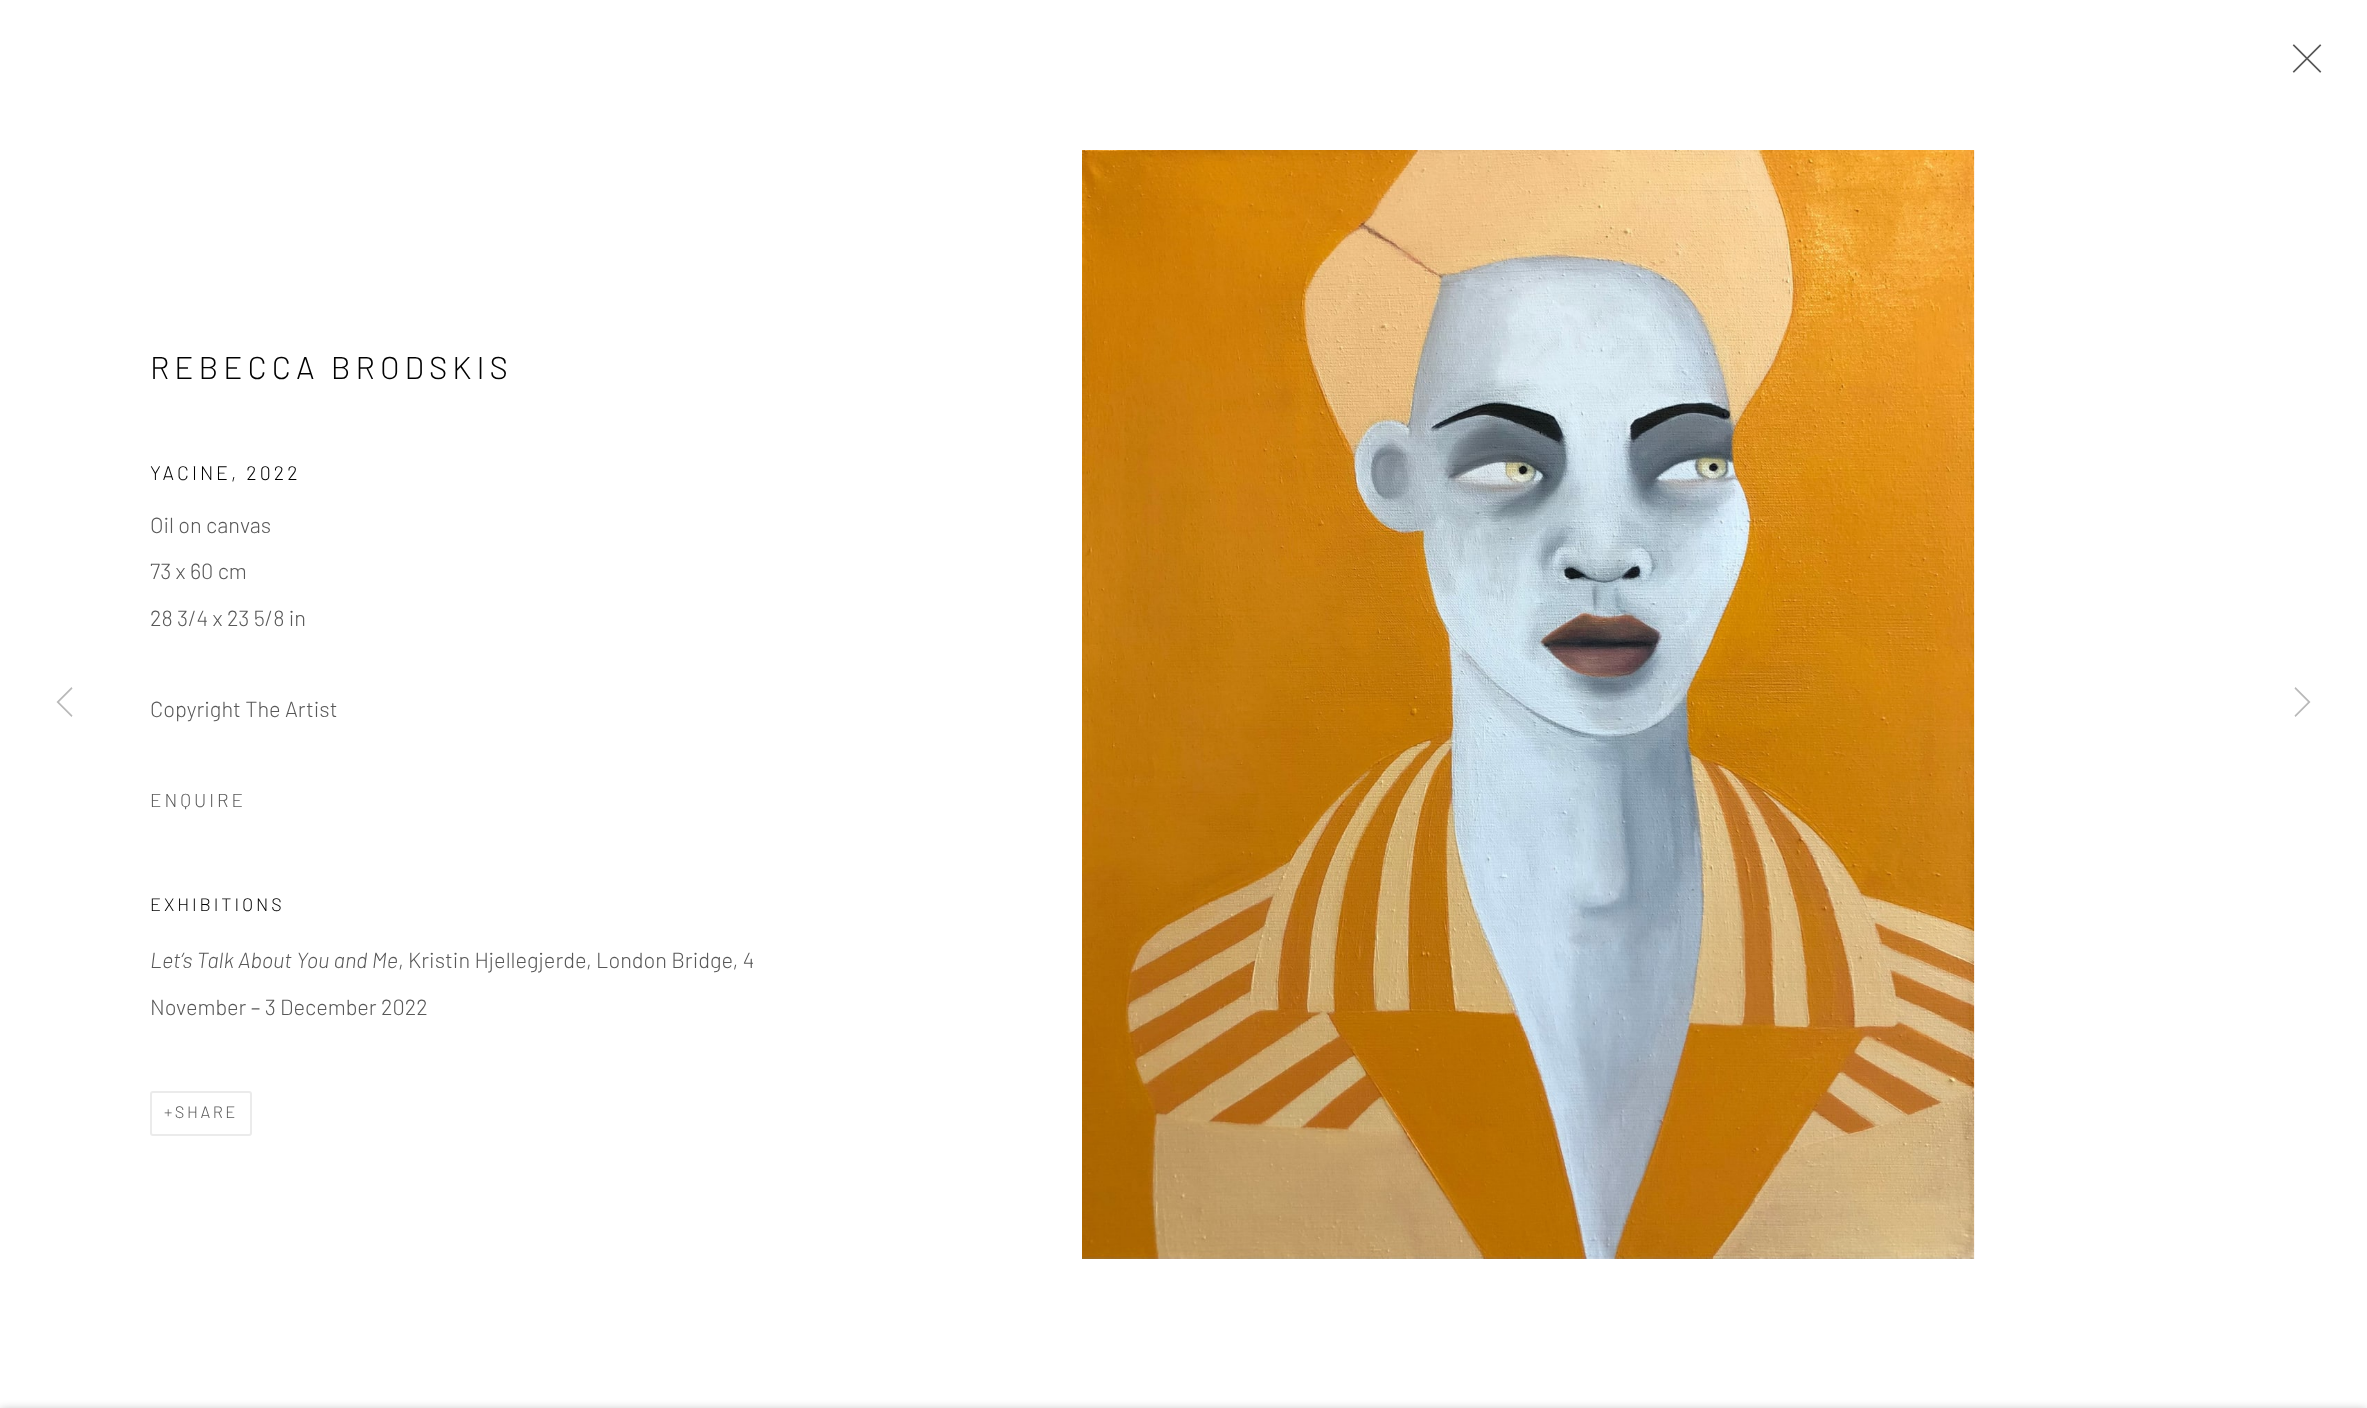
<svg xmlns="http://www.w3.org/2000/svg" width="2367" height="1408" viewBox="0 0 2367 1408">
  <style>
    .t1 { font: 300 31.5px Barlow; letter-spacing: 5px; fill: #010101; }
    .t2 { font: 300 19.5px Barlow; letter-spacing: 3.1px; fill: #010101; }
    .t3 { font: 300 21.75px Barlow; fill: #585858; }
    .t4 { font: 300 18.75px Barlow; letter-spacing: 3px; fill: #585858; }
    .t5 { font: 300 18px Barlow; letter-spacing: 2.9px; fill: #010101; }
    .t6 { font: italic 300 21.75px Barlow; fill: #585858; }
    .t7 { font: 300 16.5px Barlow; letter-spacing: 2.5px; fill: #585858; }
  </style>
  <rect width="100%" height="100%" fill="#fff"/>
  <image x="2292" y="44" width="30" height="29" href="images/1.png"/>
  <text x="150" y="379" class="t1">REBECCA BRODSKIS</text>
  <text x="150" y="480" class="t2">YACINE, 2022</text>
  <text x="150" y="533" class="t3">Oil on canvas</text>
  <text x="150" y="579" class="t3">73 x 60 cm</text>
  <text x="150" y="626" class="t3">28 3/4 x 23 5/8 in</text>
  <text x="150" y="717" class="t3">Copyright The Artist</text>
  <text x="150" y="807" class="t4">ENQUIRE</text>
  <text x="150" y="911" class="t5">EXHIBITIONS</text>
  <text x="150" y="968" class="t6">Let’s Talk About You and Me</text>
  <text x="398" y="968" class="t3">, Kristin Hjellegjerde, London Bridge, 4</text>
  <text x="150" y="1015" class="t3">November – 3 December 2022</text>
  <rect x="151" y="1092" width="100" height="43" rx="2" fill="none" stroke="#ebebeb" stroke-width="2"/>
  <text x="164" y="1118" class="t7">+SHARE</text>
  <image x="1082" y="150" width="893" height="1109" href="images/2.png"/>
  <path d="M57.5 703L71.5 717L72.5 715.5L59 702L72.5 688.5L71.5 687L56.5 702Z" fill="#b9b9b9"/>
  <path d="M2310.5 702L2295.5 687L2294.5 688.5L2308 702L2294.5 715.5L2295.5 717Z" fill="#b9b9b9"/>
  <rect x="0" y="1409" width="2367" height="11" fill="#0000003b" filter="blur(4px)"/>
</svg>
